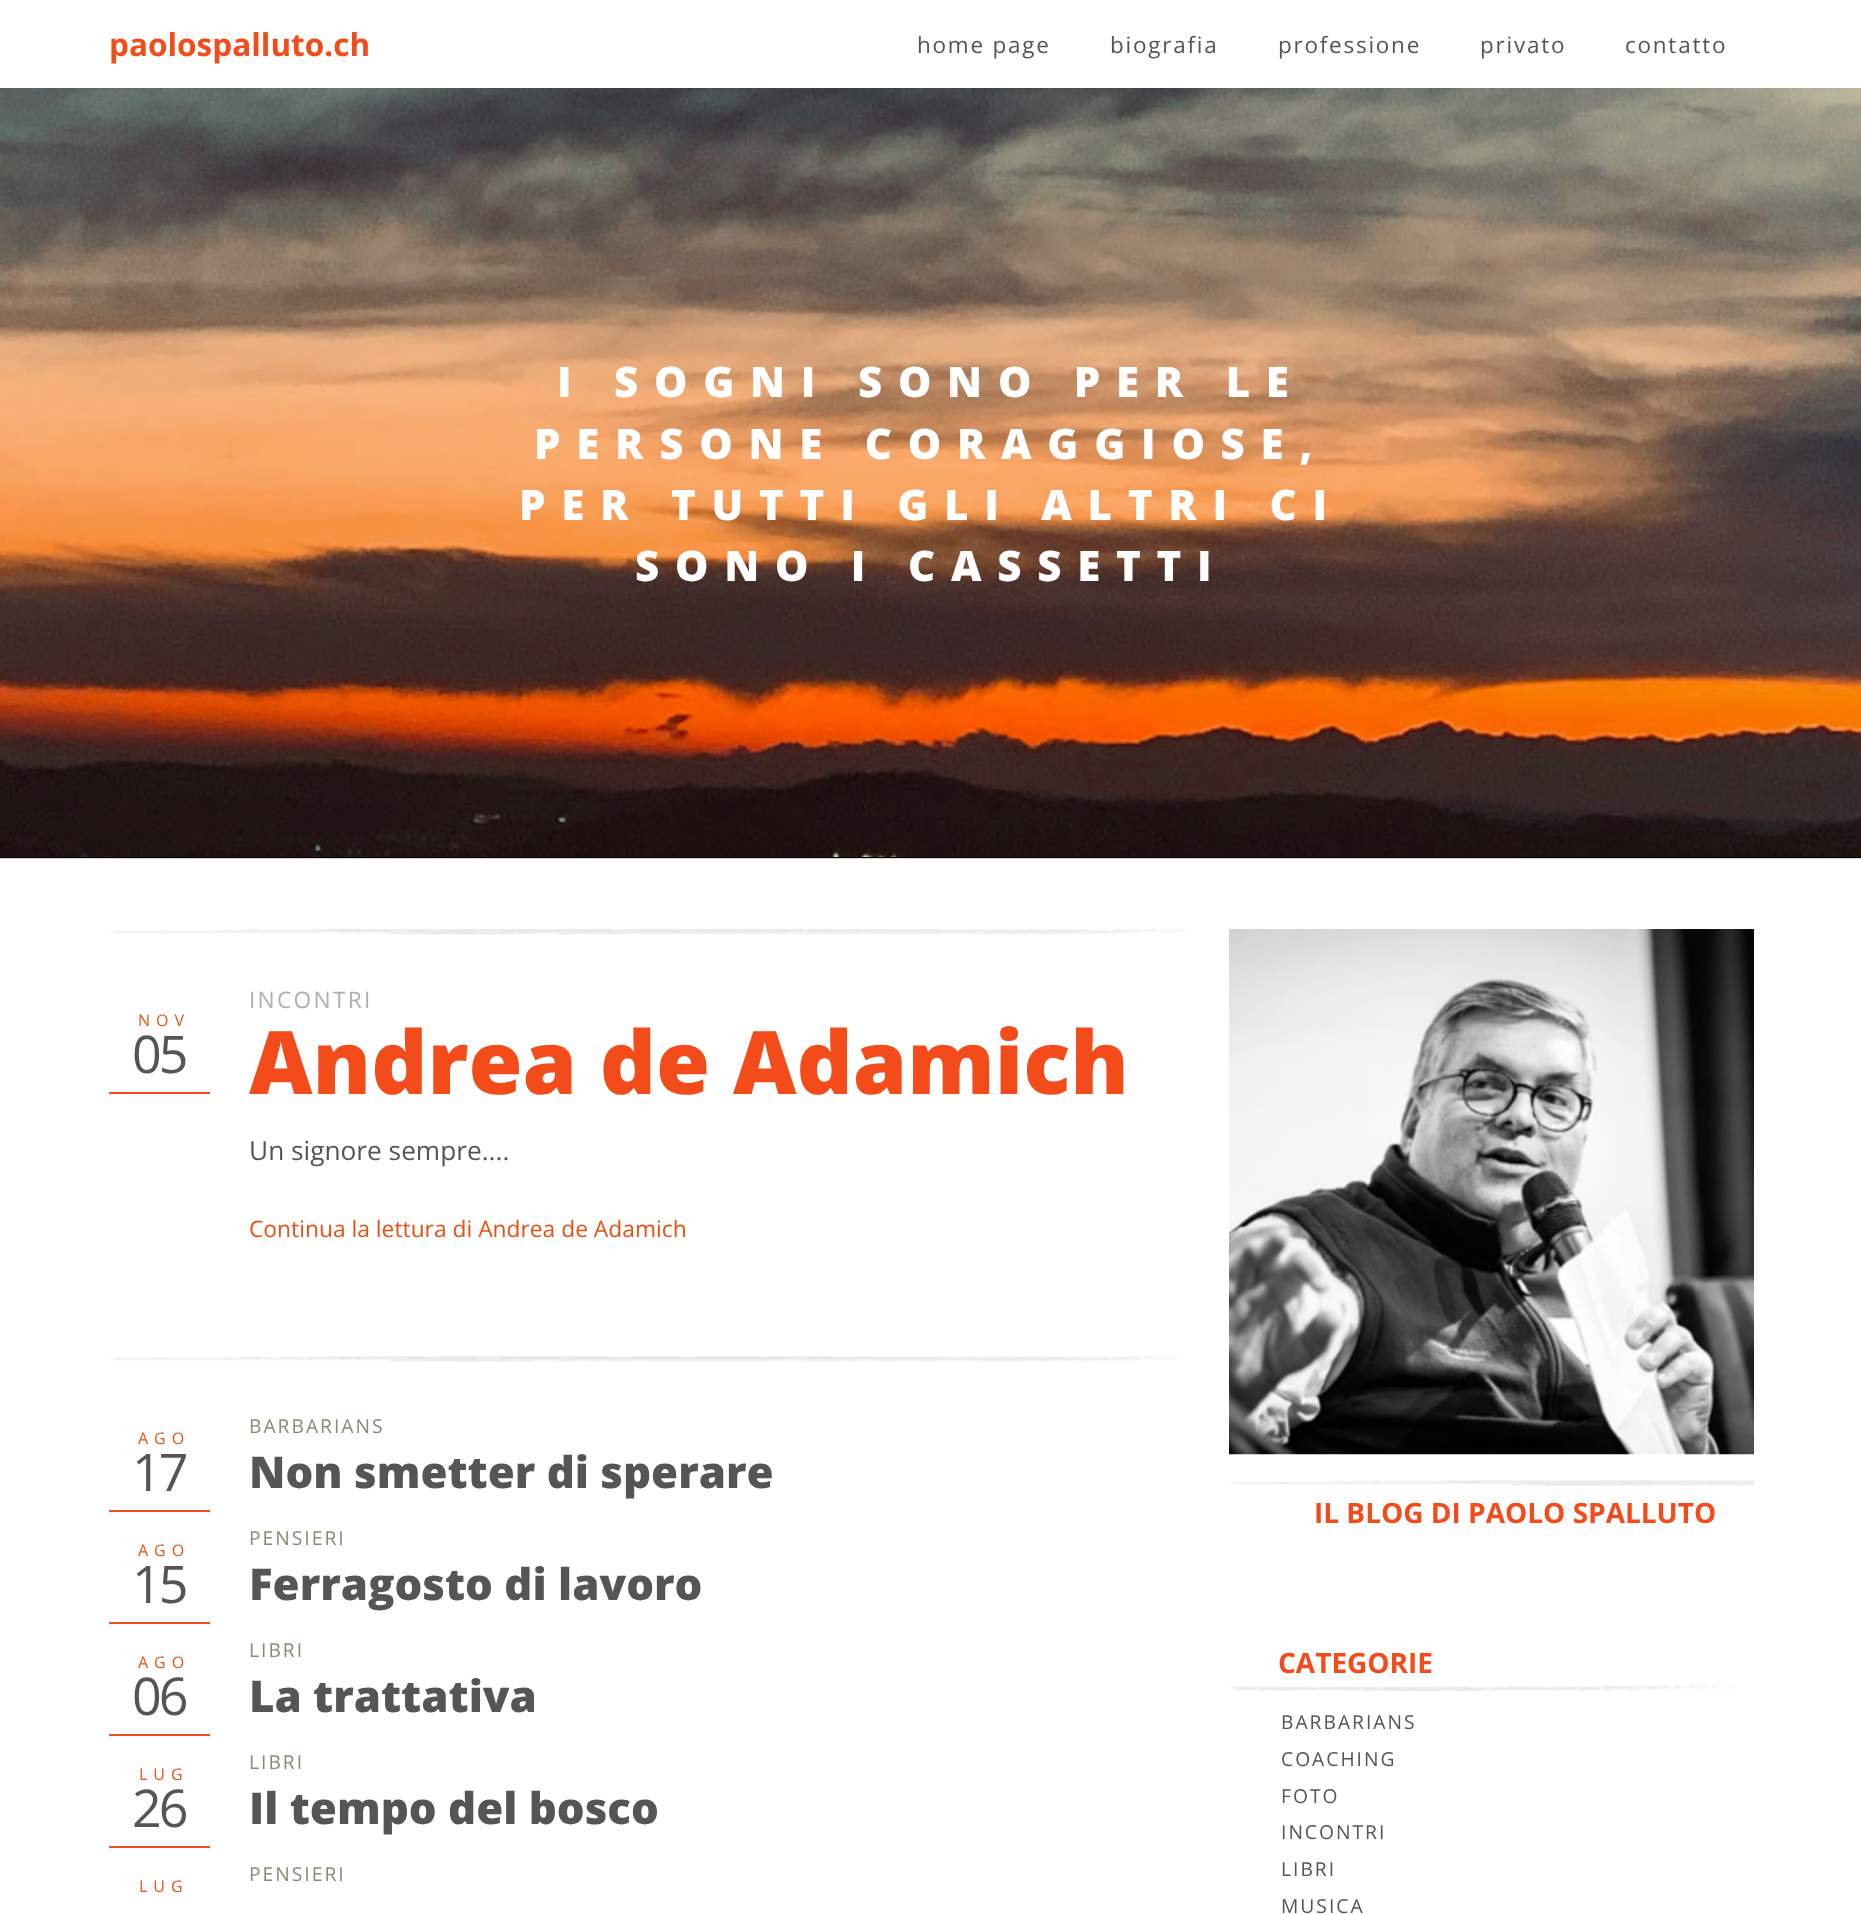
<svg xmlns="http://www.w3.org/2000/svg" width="1861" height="1915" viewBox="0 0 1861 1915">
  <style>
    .t1 { font: bold 31.5px Open Sans; fill: #f34c1a; }
    .t2 { font: 22.5px Open Sans; letter-spacing: 1.75px; fill: #555; }
    .t3 { font: 800 42px Open Sans; letter-spacing: 15.75px; fill: #fff; }
    .t4 { font: 16px Open Sans; letter-spacing: 6px; fill: #e75113; }
    .t5 { font: 52px Open Sans; letter-spacing: -3px; fill: #555; }
    .t6 { font: 22.75px Open Sans; letter-spacing: 2.25px; fill: #adb3a4; }
    .t7 { font: 800 87.5px Open Sans; fill: #f34c1a; }
    .t8 { font: 26.25px Open Sans; fill: #555; }
    .t9 { font: 22.8px Open Sans; fill: #e75113; }
    .t10 { font: 19.25px Open Sans; letter-spacing: 2px; fill: #8a8a79; }
    .t11 { font: 800 43.75px Open Sans; fill: #555; }
    .t12 { font: bold 28px Open Sans; fill: #f34c1a; }
    .t13 { font: 19.25px Open Sans; letter-spacing: 2px; fill: #555; }
  </style>
  <rect width="100%" height="100%" fill="#d2d8ce"/>
  <rect x="0" y="0" width="1861" height="88" fill="#fff"/>
  <text x="109" y="56" class="t1">paolospalluto.ch</text>
  <text x="917" y="53" class="t2">home page</text>
  <text x="1110" y="53" class="t2">biografia</text>
  <text x="1278" y="53" class="t2">professione</text>
  <text x="1480" y="53" class="t2">privato</text>
  <text x="1625" y="53" class="t2">contatto</text>
  <rect x="0" y="857" width="1861" height="1" fill="#000"/>
  <image x="0" y="88" width="1861" height="769" href="images/1.png"/>
  <text x="557" y="397" class="t3">I SOGNI SONO PER LE</text>
  <text x="534" y="459" class="t3">PERSONE CORAGGIOSE,</text>
  <text x="519" y="520" class="t3">PER TUTTI GLI ALTRI CI</text>
  <text x="635" y="581" class="t3">SONO I CASSETTI</text>
  <rect x="0" y="859" width="1861" height="1056" fill="#fff"/>
  <image x="109" y="929" width="1077" height="6" href="images/2.png"/>
  <rect x="109" y="1092" width="101" height="2" fill="#f34c1a"/>
  <text x="138" y="1026" class="t4">NOV</text>
  <text x="132" y="1073" class="t5">05</text>
  <text x="249" y="1008" class="t6">INCONTRI</text>
  <text x="249" y="1094" class="t7">Andrea de Adamich</text>
  <text x="249" y="1160" class="t8">Un signore sempre....</text>
  <text x="249" y="1237" class="t9">Continua la lettura di Andrea de Adamich</text>
  <image x="109" y="1356" width="1073" height="6" href="images/3.png"/>
  <rect x="109" y="1510" width="101" height="2" fill="#f34c1a"/>
  <text x="138" y="1444" class="t4">AGO</text>
  <text x="132" y="1491" class="t5">17</text>
  <text x="249" y="1433" class="t10">BARBARIANS</text>
  <text x="249" y="1488" class="t11">Non smetter di sperare</text>
  <rect x="109" y="1622" width="101" height="2" fill="#f34c1a"/>
  <text x="138" y="1556" class="t4">AGO</text>
  <text x="132" y="1603" class="t5">15</text>
  <text x="249" y="1545" class="t10">PENSIERI</text>
  <text x="249" y="1600" class="t11">Ferragosto di lavoro</text>
  <rect x="109" y="1734" width="101" height="2" fill="#f34c1a"/>
  <text x="138" y="1668" class="t4">AGO</text>
  <text x="132" y="1715" class="t5">06</text>
  <text x="249" y="1657" class="t10">LIBRI</text>
  <text x="249" y="1712" class="t11">La trattativa</text>
  <rect x="109" y="1846" width="101" height="2" fill="#f34c1a"/>
  <text x="139" y="1780" class="t4">LUG</text>
  <text x="132" y="1827" class="t5">26</text>
  <text x="249" y="1769" class="t10">LIBRI</text>
  <text x="249" y="1824" class="t11">Il tempo del bosco</text>
  <text x="249" y="1881" class="t10">PENSIERI</text>
  <text x="139" y="1892" class="t4">LUG</text>
  <image x="1229" y="929" width="525" height="526" href="images/4.png"/>
  <image x="1229" y="1480" width="525" height="6" href="images/5.png"/>
  <text x="1314" y="1523" class="t12">IL BLOG DI PAOLO SPALLUTO</text>
  <text x="1278" y="1673" class="t12">CATEGORIE</text>
  <image x="1231" y="1685" width="501" height="7" href="images/6.png"/>
  <text x="1281" y="1729" class="t13">BARBARIANS</text>
  <text x="1281" y="1766" class="t13">COACHING</text>
  <text x="1281" y="1803" class="t13">FOTO</text>
  <text x="1281" y="1839" class="t13">INCONTRI</text>
  <text x="1281" y="1876" class="t13">LIBRI</text>
  <text x="1281" y="1913" class="t13">MUSICA</text>
</svg>
